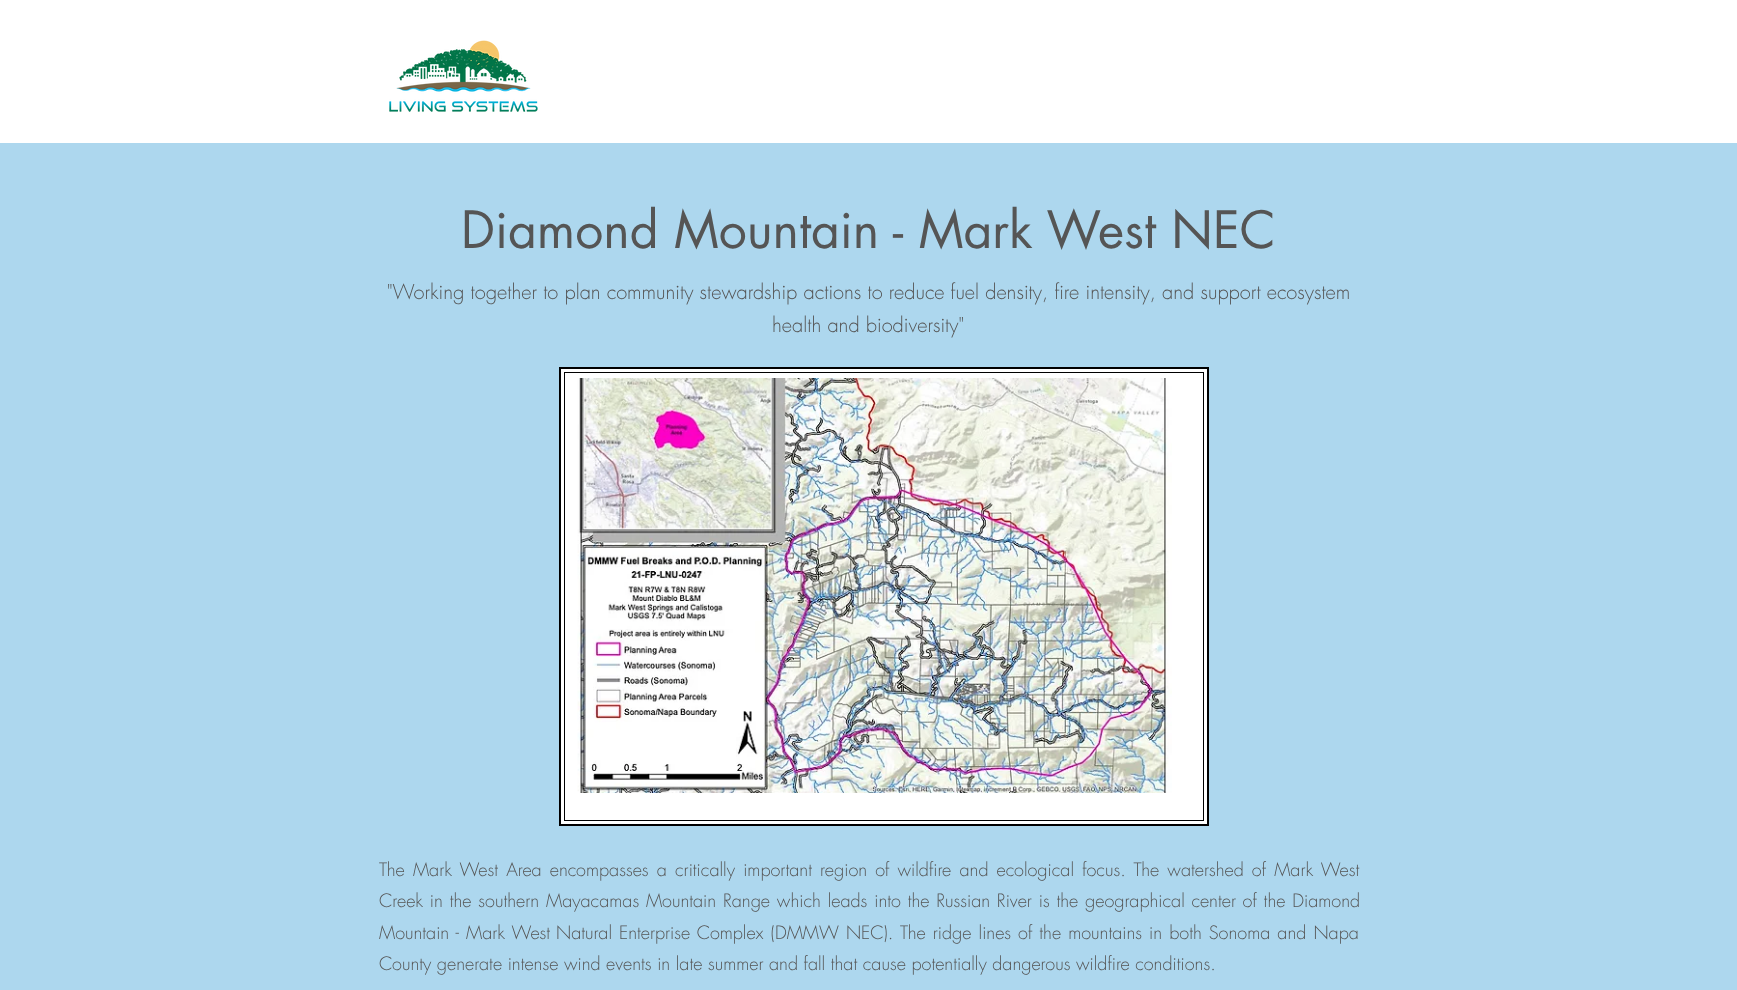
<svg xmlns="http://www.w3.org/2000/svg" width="1737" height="990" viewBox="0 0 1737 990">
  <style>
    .t1 { font: 50px futura; fill: #555; }
    .t2 { font: 300 20px futura; fill: #555; }
    .t3 { font: 300 18px futura; fill: #555; }
  </style>
  <rect width="100%" height="100%" fill="#add7ee"/>
  <rect x="0" y="0" width="1737" height="143" fill="#fff"/>
  <image x="389" y="40" width="149" height="72" href="images/1.png"/>
  <text x="461" y="248" class="t1">Diamond Mountain - Mark West NEC</text>
  <text x="387" y="299" class="t2">"Working together to plan community stewardship actions to reduce fuel density, fire intensity, and support ecosystem</text>
  <text x="772" y="332" class="t2">health and biodiversity"</text>
  <rect x="560" y="368" width="648" height="457" fill="#fff" stroke="#000" stroke-width="2"/>
  <image x="577" y="378" width="595" height="415" href="images/2.png"/>
  <rect x="564.5" y="372.5" width="639" height="448" fill="none" stroke="#000"/>
  <text x="379" y="876" word-spacing="2.6" class="t3">The Mark West Area encompasses a critically important region of wildfire and ecological focus. The watershed of Mark West</text>
  <text x="379" y="907" word-spacing="1.25" class="t3">Creek in the southern Mayacamas Mountain Range which leads into the Russian River is the geographical center of the Diamond</text>
  <text x="379" y="939" word-spacing="1.5" class="t3">Mountain - Mark West</text>
  <text x="556" y="939" word-spacing="1.5" class="t3">Natural Enterprise Complex (DMMW NEC). The ridge lines of the mountains in both Sonoma and Napa</text>
  <text x="379" y="970" class="t3">County generate intense wind events in late summer and fall that cause potentially dangerous wildfire conditions.</text>
</svg>
